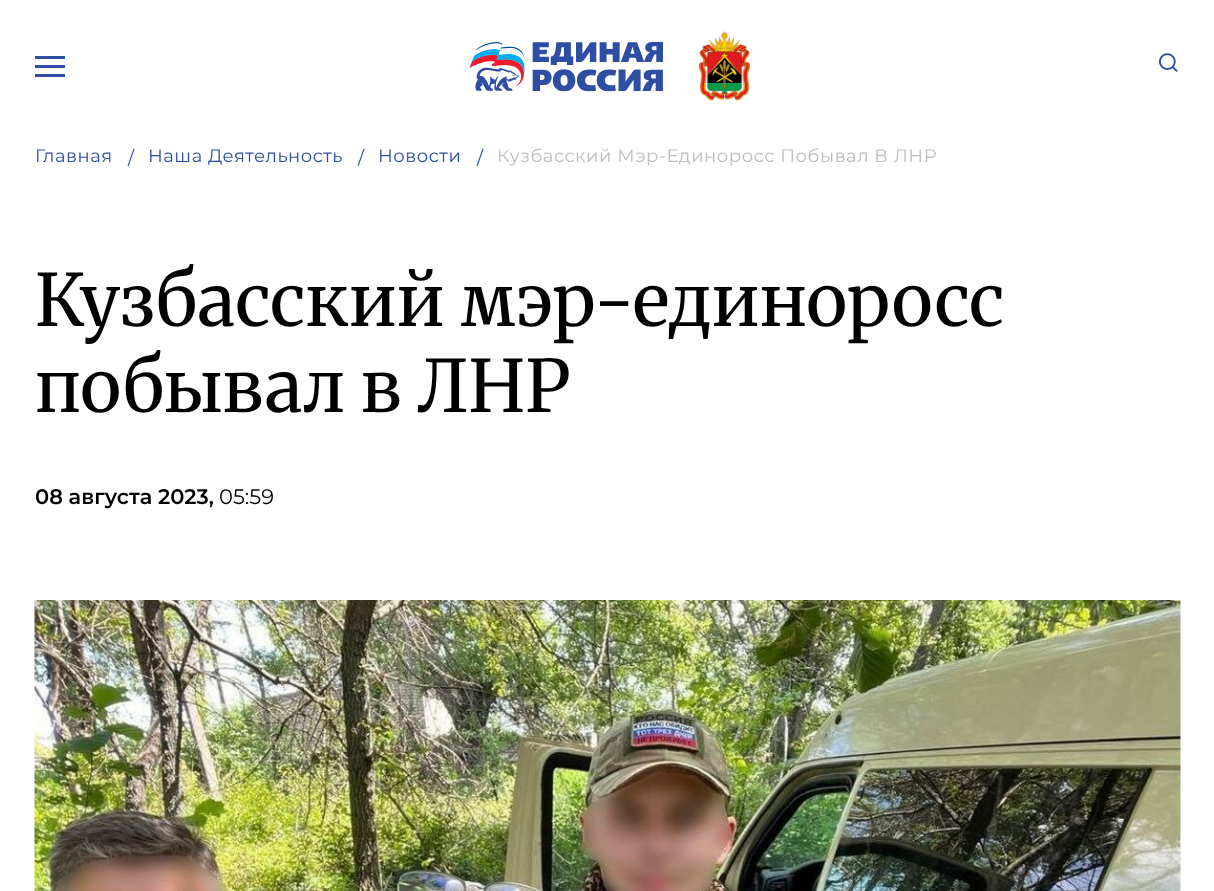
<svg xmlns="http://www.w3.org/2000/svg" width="1214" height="891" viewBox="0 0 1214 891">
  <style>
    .t1 { font: 18px Montserrat; letter-spacing: 0.55px; fill: #2e4ea4; }
    .t2 { font: 18px Montserrat; letter-spacing: 0.55px; fill: #bdbdbd; }
    .t3 { font: 72px Merriweather; fill: #000; }
    .t4 { font: 600 21px Montserrat; fill: #000; }
    .t5 { font: 21px Montserrat; fill: #000; }
  </style>
  <rect width="100%" height="100%" fill="#fff"/>
  <rect x="35" y="56" width="30" height="3" fill="#2e4ea4"/>
  <rect x="35" y="65" width="30" height="3" fill="#2e4ea4"/>
  <rect x="35" y="74" width="30" height="3" fill="#2e4ea4"/>
  <image x="470" y="42" width="193" height="50" href="images/1.png"/>
  <image x="699" y="31" width="51" height="70" href="images/2.png"/>
  <image x="1159" y="53" width="19" height="19" href="images/3.png"/>
  <text x="35" y="162" class="t1">Главная</text>
  <text x="128" y="164" class="t1">/</text>
  <text x="148" y="162" class="t1">Наша Деятельность</text>
  <text x="358" y="164" class="t1">/</text>
  <text x="378" y="162" class="t1">Новости</text>
  <text x="477" y="164" class="t1">/</text>
  <text x="497" y="162" class="t2">Кузбасский Мэр-Единоросс Побывал В ЛНР</text>
  <text x="35" y="326" class="t3">Кузбасский мэр-единоросс</text>
  <text x="35" y="412" class="t3">побывал в ЛНР</text>
  <text x="35" y="504" class="t4">08 августа 2023,</text>
  <text x="219" y="504" class="t5">05:59</text>
  <image x="34" y="600" width="1147" height="291" href="images/4.png"/>
</svg>
